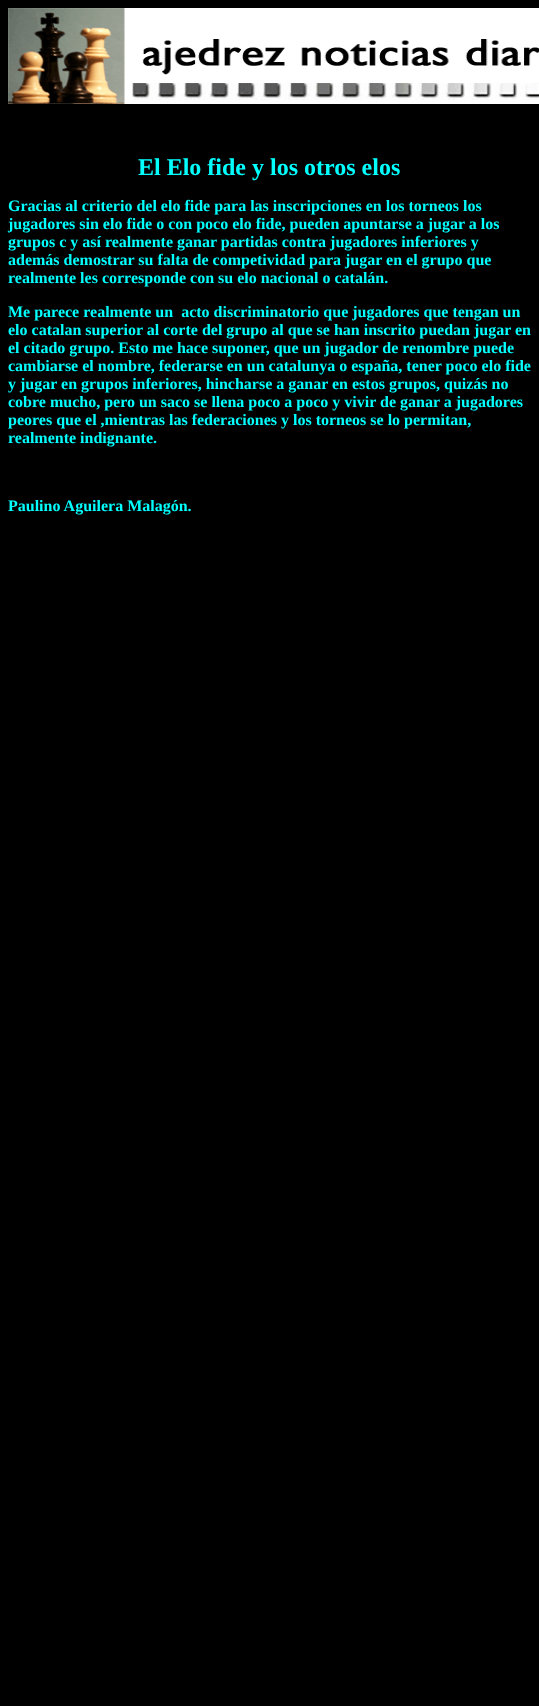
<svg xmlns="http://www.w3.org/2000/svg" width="539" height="1706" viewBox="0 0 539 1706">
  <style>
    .t1 { font: bold 24px Liberation Serif; fill: #0ff; }
    .t2 { font: bold 16px Liberation Serif; fill: #0ff; }
  </style>
  <rect width="100%" height="100%" fill="#000"/>
  <image x="8" y="8" width="531" height="96" href="images/1.png"/>
  <text x="138" y="175" class="t1">El Elo fide y los otros elos</text>
  <text x="8" y="211" class="t2">Gracias al criterio del elo fide para las inscripciones en los torneos los</text>
  <text x="8" y="229" class="t2">jugadores sin elo fide o con poco elo fide, pueden apuntarse a jugar a los</text>
  <text x="8" y="247" class="t2">grupos c y así realmente ganar partidas contra jugadores inferiores y</text>
  <text x="8" y="265" class="t2">además demostrar su falta de competividad para jugar en el grupo que</text>
  <text x="8" y="283" class="t2">realmente les corresponde con su elo nacional o catalán.</text>
  <text x="8" y="317" class="t2" xml:space="preserve">Me parece realmente un  acto discriminatorio que jugadores que tengan un</text>
  <text x="8" y="335" class="t2">elo catalan superior al corte del grupo al que se han inscrito puedan jugar en</text>
  <text x="8" y="353" class="t2">el citado grupo. Esto me hace suponer, que un jugador de renombre puede</text>
  <text x="8" y="371" class="t2">cambiarse el nombre, federarse en un catalunya o españa, tener poco elo fide</text>
  <text x="8" y="389" class="t2">y jugar en grupos inferiores, hincharse a ganar en estos grupos, quizás no</text>
  <text x="8" y="407" class="t2">cobre mucho, pero un saco se llena poco a poco y vivir de ganar a jugadores</text>
  <text x="8" y="425" class="t2">peores que el ,mientras las federaciones y los torneos se lo permitan,</text>
  <text x="8" y="443" class="t2">realmente indignante.</text>
  <text x="8" y="511" class="t2">Paulino Aguilera Malagón.</text>
</svg>
